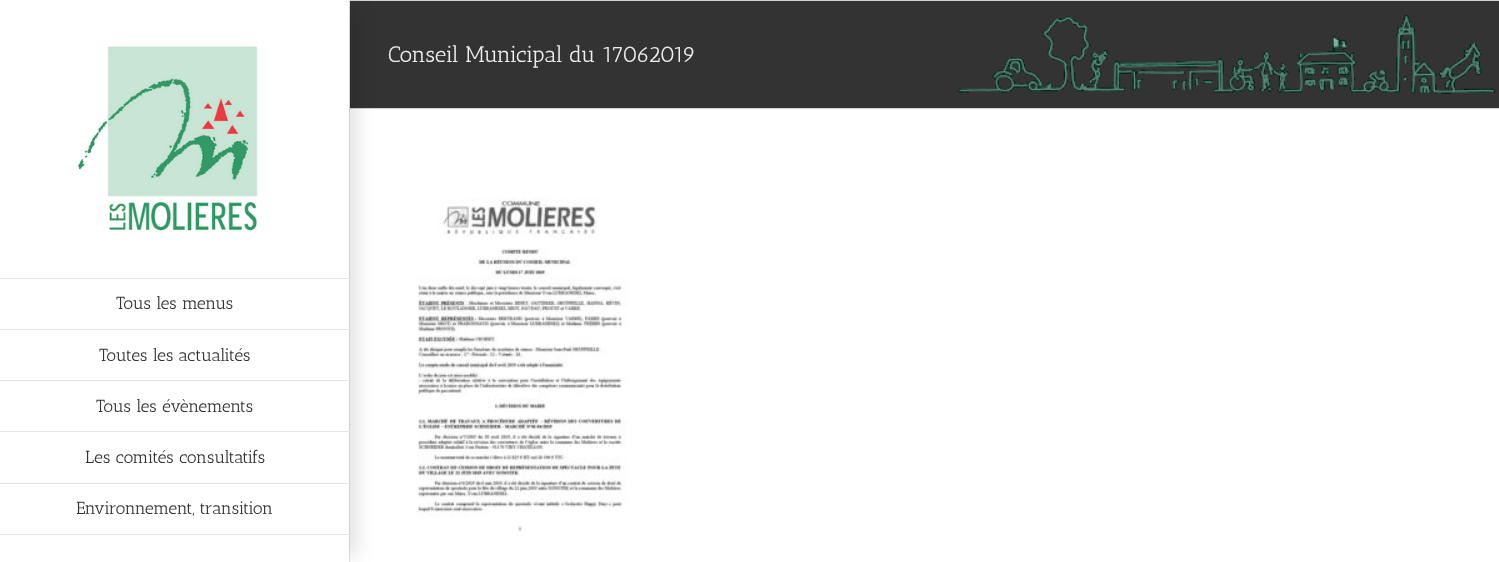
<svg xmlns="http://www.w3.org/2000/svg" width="1499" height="562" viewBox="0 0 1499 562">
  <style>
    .t1 { font: 22.5px Antic Slab; fill: #efefef; }
    .t2 { font: 17.5px Antic Slab; fill: #333; }
  </style>
  <defs>
    <clipPath id="clip1"><path d="M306 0H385V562H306ZM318 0H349V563H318Z" clip-rule="evenodd"/></clipPath>
  </defs>
  <rect width="100%" height="100%" fill="#fff"/>
  <image x="350" y="1" width="1149" height="107" href="images/1.png"/>
  <rect x="350" y="0" width="1149" height="1" fill="#d2d3d4"/>
  <rect x="350" y="108" width="1149" height="1" fill="#d2d3d4"/>
  <text x="388" y="62" class="t1">Conseil Municipal du 17062019</text>
  <image x="78" y="46" width="180" height="185" href="images/2.png"/>
  <rect x="349" y="0" width="1" height="562" fill="#e5e5e5"/>
  <g clip-path="url(#clip1)">
    <rect x="336" y="6" width="19" height="550" fill="#00000024" filter="blur(9.5px)"/>
  </g>
  <rect x="0" y="278" width="350" height="1" fill="#e5e5e5"/>
  <rect x="0" y="329" width="350" height="1" fill="#e5e5e5"/>
  <text x="116" y="309" class="t2">Tous les menus</text>
  <rect x="0" y="380" width="350" height="1" fill="#e5e5e5"/>
  <text x="99" y="361" class="t2">Toutes les actualités</text>
  <rect x="0" y="431" width="350" height="1" fill="#e5e5e5"/>
  <text x="96" y="412" class="t2">Tous les évènements</text>
  <rect x="0" y="483" width="350" height="1" fill="#e5e5e5"/>
  <text x="85" y="463" class="t2">Les comités consultatifs</text>
  <rect x="0" y="534" width="350" height="1" fill="#e5e5e5"/>
  <text x="76" y="514" class="t2">Environnement, transition</text>
  <image x="417" y="197" width="210" height="338" href="images/3.png"/>
</svg>
